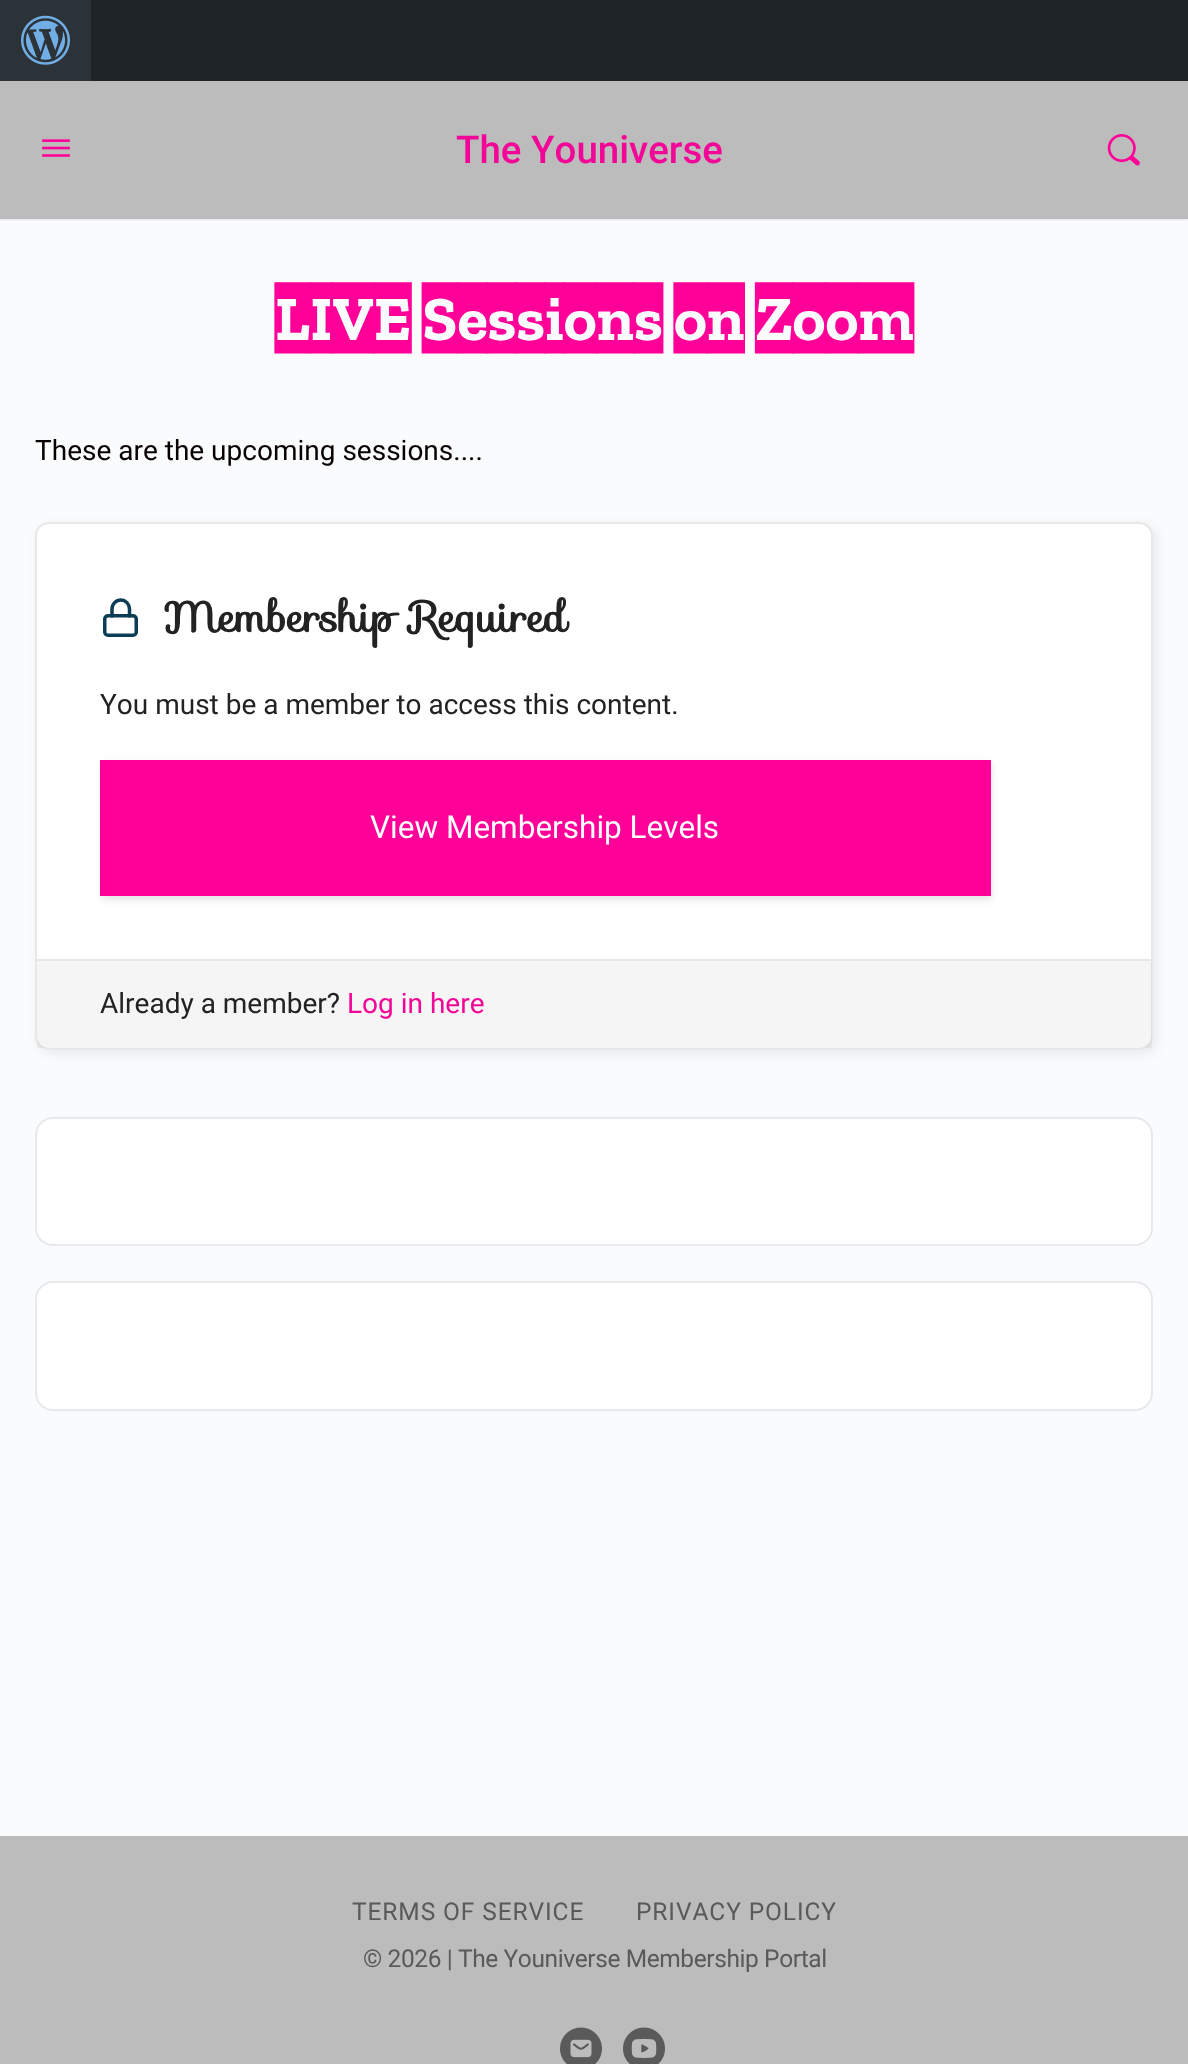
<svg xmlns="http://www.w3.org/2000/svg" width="1188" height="2064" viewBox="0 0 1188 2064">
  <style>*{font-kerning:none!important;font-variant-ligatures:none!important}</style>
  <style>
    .t1 { font: 500 38.5px Roboto; fill: #f30697; }
    .t2 { font: 300 63px Zilla Slab Highlight; fill: #f09; }
    .t3 { font: 28px Roboto; fill: #080202; }
    .t4 { font: bold 42px Sofia; fill: #222; }
    .t5 { font: 28px Roboto; fill: #222; }
    .t6 { font: 31.5px Roboto; fill: #fff; }
    .t7 { font: 28px Roboto; fill: #f30697; }
    .t8 { font: 24.5px Roboto; letter-spacing: 0.9px; fill: #5a5a5a; }
    .t9 { font: 24.5px Roboto; letter-spacing: -0.4px; fill: #5a5a5a; }
  </style>
  <rect width="100%" height="100%" fill="#fafbfd"/>
  <rect x="0" y="81" width="1188" height="138" fill="#41476c26" filter="blur(1px)"/>
  <rect x="91" y="0" width="1097" height="81" fill="#1d2327"/>
  <rect x="0" y="0" width="91" height="81" fill="#2c3338"/>
  <image x="21" y="15" width="49" height="50" href="images/1.png"/>
  <rect x="0" y="219" width="1188" height="2" fill="#8b8d9d0d"/>
  <rect x="0" y="81" width="1188" height="138" fill="#bcbcbc"/>
  <image x="42" y="139" width="28" height="18" href="images/2.png"/>
  <text x="456" y="163" class="t1">The Youniverse</text>
  <image x="1107" y="134" width="33" height="32" href="images/3.png"/>
  <text x="275" y="340" class="t2">LIVE Sessions on Zoom</text>
  <text x="35" y="460" class="t3">These are the upcoming sessions....</text>
  <rect x="39" y="525" width="1118" height="529" rx="14" fill="#00000012" filter="blur(6px)"/>
  <rect x="36" y="523" width="1116" height="526" rx="13" fill="#fff" stroke="#e8e8e8" stroke-width="2"/>
  <rect x="104.75" y="615.75" width="31.5" height="19.5" rx="3.25" fill="none" stroke="#0c3d54" stroke-width="3.5"/>
  <path d="M112 616V609C112 604 116 600 121 600C125.5 600 129.5 604 129.5 609V616" fill="none" stroke="#0c3d54" stroke-width="3.5" stroke-linecap="round" stroke-linejoin="round"/>
  <text x="163" y="632" class="t4">Membership Required</text>
  <text x="100" y="714" class="t5">You must be a member to access this content.</text>
  <rect x="102" y="763" width="890" height="137" fill="#0000001a" filter="blur(3.5px)"/>
  <rect x="100" y="760" width="891" height="136" fill="#f09"/>
  <text x="370" y="838" class="t6">View Membership Levels</text>
  <rect x="37" y="961" width="1115" height="87" fill="#0000000a"/>
  <rect x="37" y="959" width="1115" height="2" fill="#e8e8e8"/>
  <text x="100" y="1013" class="t5">Already a member?</text>
  <text x="347" y="1013" class="t7">Log in here</text>
  <rect x="36" y="1118" width="1116" height="127" rx="17" fill="#fff" stroke="#e7e9ec" stroke-width="2"/>
  <rect x="36" y="1282" width="1116" height="128" rx="17" fill="#fff" stroke="#e7e9ec" stroke-width="2"/>
  <rect x="0" y="1836" width="1188" height="228" fill="#bcbcbc"/>
  <text x="352" y="1920" class="t8">TERMS OF SERVICE</text>
  <text x="636" y="1920" class="t8">PRIVACY POLICY</text>
  <text x="363" y="1967" class="t9">© 2026 | The Youniverse Membership Portal</text>
  <image x="560" y="2027" width="42" height="37" href="images/4.png"/>
  <image x="623" y="2027" width="42" height="37" href="images/5.png"/>
</svg>
